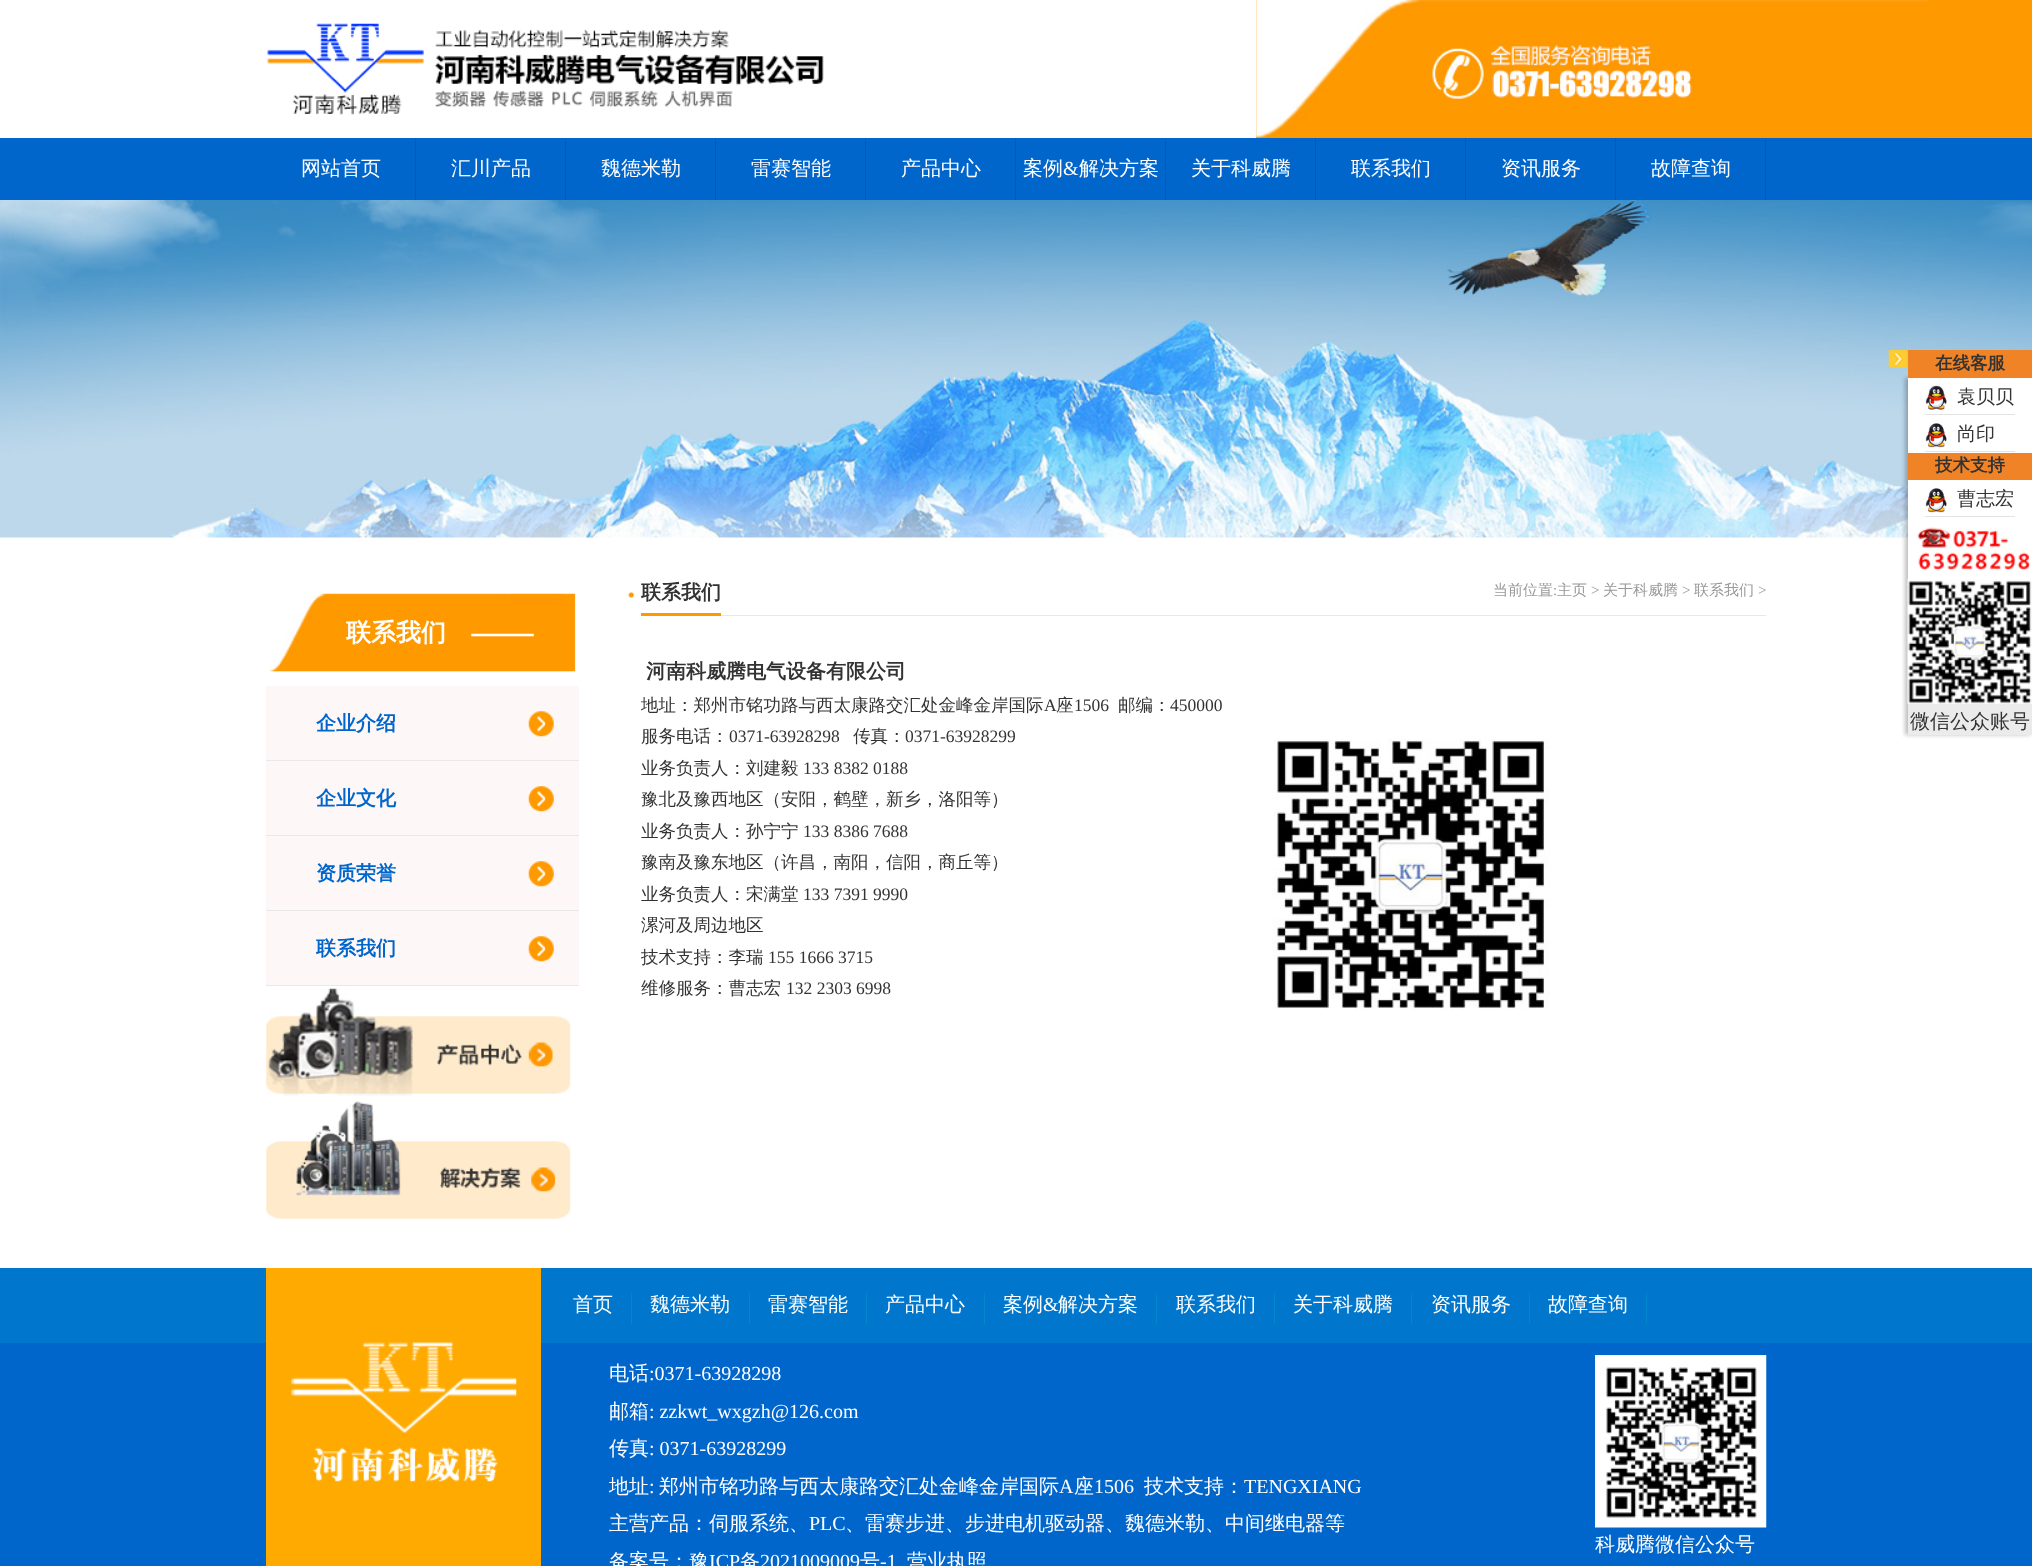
<svg xmlns="http://www.w3.org/2000/svg" width="2032" height="1566" viewBox="0 0 2032 1566">
  <style>
    .t1 { font: 500 20px WenQuanYi Zen Hei; fill: #fff; }
    .t2 { font: 20px Liberation Serif; fill: #fff; }
    .t3 { font: bold 17.5px WenQuanYi Zen Hei; fill: #333; }
    .t4 { font: 500 19px WenQuanYi Zen Hei; fill: #333; }
    .t5 { font: 500 20px WenQuanYi Zen Hei; fill: #333; }
    .t6 { font: bold 25px WenQuanYi Zen Hei; fill: #fff; }
    .t7 { font: bold 20px WenQuanYi Zen Hei; fill: #06c; }
    .t8 { font: bold 20px WenQuanYi Zen Hei; fill: #333; }
    .t9 { font: 500 15px WenQuanYi Zen Hei; fill: #999; }
    .t10 { font: 15px Liberation Serif; fill: #999; }
    .t11 { font: 500 17.5px WenQuanYi Zen Hei; fill: #333; }
    .t12 { font: 17.5px Liberation Serif; fill: #333; }
  </style>
  <defs>
    <clipPath id="clip1"><path d="M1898 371H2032V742H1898ZM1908 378H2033V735H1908Z" clip-rule="evenodd"/></clipPath>
  </defs>
  <rect width="100%" height="100%" fill="#fff"/>
  <image x="267" y="23" width="557" height="92" href="images/1.png"/>
  <rect x="1256" y="0" width="776" height="138" fill="#f90"/>
  <image x="1256" y="0" width="673" height="138" href="images/2.png"/>
  <rect x="0" y="138" width="2032" height="62" fill="#06c"/>
  <rect x="415" y="138" width="1" height="62" fill="#015cb7"/>
  <text x="301" y="175" class="t1">网站首页</text>
  <rect x="565" y="138" width="1" height="62" fill="#015cb7"/>
  <text x="451" y="175" class="t1">汇川产品</text>
  <rect x="715" y="138" width="1" height="62" fill="#015cb7"/>
  <text x="601" y="175" class="t1">魏德米勒</text>
  <rect x="865" y="138" width="1" height="62" fill="#015cb7"/>
  <text x="751" y="175" class="t1">雷赛智能</text>
  <rect x="1015" y="138" width="1" height="62" fill="#015cb7"/>
  <text x="901" y="175" class="t1">产品中心</text>
  <rect x="1165" y="138" width="1" height="62" fill="#015cb7"/>
  <text x="1023" y="175" class="t1">案例</text>
  <text x="1063" y="175" class="t2">&amp;</text>
  <text x="1079" y="175" class="t1">解决方案</text>
  <rect x="1315" y="138" width="1" height="62" fill="#015cb7"/>
  <text x="1191" y="175" class="t1">关于科威腾</text>
  <rect x="1465" y="138" width="1" height="62" fill="#015cb7"/>
  <text x="1351" y="175" class="t1">联系我们</text>
  <rect x="1615" y="138" width="1" height="62" fill="#015cb7"/>
  <text x="1501" y="175" class="t1">资讯服务</text>
  <rect x="1765" y="138" width="1" height="62" fill="#015cb7"/>
  <text x="1651" y="175" class="t1">故障查询</text>
  <image x="0" y="200" width="2032" height="338" href="images/3.png"/>
  <image x="1888" y="350" width="20" height="18" href="images/4.png"/>
  <rect x="1908" y="378" width="124" height="160" fill="#fff"/>
  <g clip-path="url(#clip1)">
    <rect x="1905" y="378" width="125" height="357" fill="#00000040" filter="blur(2px)"/>
  </g>
  <rect x="1908" y="350" width="124" height="28" fill="#f08326"/>
  <text x="1935" y="369" class="t3">在线客服</text>
  <rect x="1925" y="414" width="90" height="1" fill="#e3e3e3"/>
  <image x="1925" y="385" width="22" height="25" href="images/5.png"/>
  <text x="1957" y="403" class="t4">袁贝贝</text>
  <rect x="1925" y="451" width="90" height="1" fill="#e3e3e3"/>
  <image x="1925" y="423" width="22" height="26" href="images/6.png"/>
  <text x="1957" y="440" class="t4">尚印</text>
  <rect x="1908" y="453" width="124" height="27" fill="#f08326"/>
  <text x="1935" y="471" class="t3">技术支持</text>
  <rect x="1925" y="516" width="90" height="1" fill="#e3e3e3"/>
  <image x="1925" y="488" width="22" height="26" href="images/6.png"/>
  <text x="1957" y="505" class="t4">曹志宏</text>
  <image x="1917" y="527" width="114" height="44" href="images/7.png"/>
  <rect x="1908" y="703" width="124" height="32" fill="#ebebeb"/>
  <image x="1907" y="579" width="125" height="125" href="images/8.png"/>
  <text x="1910" y="728" class="t5">微信公众账号</text>
  <image x="270" y="593" width="306" height="79" href="images/9.png"/>
  <text x="346" y="641" class="t6">联系我们</text>
  <rect x="266" y="686" width="313" height="74" fill="#fef7f7"/>
  <rect x="266" y="760" width="313" height="1" fill="#e8e8e8"/>
  <text x="316" y="730" class="t7">企业介绍</text>
  <image x="528" y="711" width="26" height="26" href="images/10.png"/>
  <rect x="266" y="761" width="313" height="74" fill="#fef7f7"/>
  <rect x="266" y="835" width="313" height="1" fill="#e8e8e8"/>
  <text x="316" y="805" class="t7">企业文化</text>
  <image x="528" y="786" width="26" height="26" href="images/10.png"/>
  <rect x="266" y="836" width="313" height="74" fill="#fef7f7"/>
  <rect x="266" y="910" width="313" height="1" fill="#e8e8e8"/>
  <text x="316" y="880" class="t7">资质荣誉</text>
  <image x="528" y="861" width="26" height="26" href="images/10.png"/>
  <rect x="266" y="911" width="313" height="74" fill="#fef7f7"/>
  <rect x="266" y="985" width="313" height="1" fill="#e8e8e8"/>
  <text x="316" y="955" class="t7">联系我们</text>
  <image x="528" y="936" width="26" height="26" href="images/10.png"/>
  <image x="266" y="988" width="305" height="108" href="images/11.png"/>
  <image x="266" y="1101" width="305" height="118" href="images/12.png"/>
  <rect x="721" y="615" width="1045" height="1" fill="#e8e8e8"/>
  <rect x="641" y="613" width="80" height="3" fill="#f90"/>
  <image x="628" y="592" width="6" height="6" href="images/13.png"/>
  <text x="641" y="599" class="t8">联系我们</text>
  <text x="1493" y="595" class="t9">当前位置</text>
  <text x="1553" y="595" class="t10">:</text>
  <text x="1557" y="595" class="t9">主页</text>
  <text x="1591" y="595" class="t10">&gt;</text>
  <text x="1603" y="595" class="t9">关于科威腾</text>
  <text x="1682" y="595" class="t10">&gt;</text>
  <text x="1694" y="595" class="t9">联系我们</text>
  <text x="1758" y="595" class="t10">&gt;</text>
  <text x="646" y="678" class="t8">河南科威腾电气设备有限公司</text>
  <text x="641" y="711" class="t11">地址：郑州市铭功路与西太康路交汇处金峰金岸国际</text>
  <text x="1044" y="711" class="t12">A</text>
  <text x="1056" y="711" class="t11">座</text>
  <text x="1074" y="711" class="t12">1506</text>
  <text x="1118" y="711" class="t11">邮编：</text>
  <text x="1170" y="711" class="t12">450000</text>
  <text x="641" y="742" class="t11">服务电话：</text>
  <text x="729" y="742" class="t12">0371-63928298</text>
  <text x="853" y="742" class="t11">传真：</text>
  <text x="905" y="742" class="t12">0371-63928299</text>
  <text x="641" y="774" class="t11">业务负责人：刘建毅</text>
  <text x="803" y="774" class="t12">133 8382 0188</text>
  <text x="641" y="805" class="t11">豫北及豫西地区（安阳，鹤壁，新乡，洛阳等）</text>
  <text x="641" y="837" class="t11">业务负责人：孙宁宁</text>
  <text x="803" y="837" class="t12">133 8386 7688</text>
  <text x="641" y="868" class="t11">豫南及豫东地区（许昌，南阳，信阳，商丘等）</text>
  <text x="641" y="900" class="t11">业务负责人：宋满堂</text>
  <text x="803" y="900" class="t12">133 7391 9990</text>
  <text x="641" y="931" class="t11">漯河及周边地区</text>
  <text x="641" y="963" class="t11">技术支持：李瑞</text>
  <text x="768" y="963" class="t12">155 1666 3715</text>
  <text x="641" y="994" class="t11">维修服务：曹志宏</text>
  <text x="786" y="994" class="t12">132 2303 6998</text>
  <image x="1272" y="739" width="278" height="270" href="images/14.png"/>
  <rect x="0" y="1268" width="2032" height="75" fill="#07c"/>
  <rect x="0" y="1343" width="2032" height="223" fill="#06c"/>
  <rect x="266" y="1268" width="275" height="298" fill="#fa0"/>
  <image x="291" y="1342" width="226" height="140" href="images/15.png"/>
  <text x="573" y="1311" class="t1">首页</text>
  <rect x="631" y="1293" width="1" height="31" fill="#08c"/>
  <text x="650" y="1311" class="t1">魏德米勒</text>
  <rect x="749" y="1293" width="1" height="31" fill="#08c"/>
  <text x="768" y="1311" class="t1">雷赛智能</text>
  <rect x="866" y="1293" width="1" height="31" fill="#08c"/>
  <text x="885" y="1311" class="t1">产品中心</text>
  <rect x="984" y="1293" width="1" height="31" fill="#08c"/>
  <text x="1003" y="1311" class="t1">案例</text>
  <text x="1043" y="1311" class="t2">&amp;</text>
  <text x="1058" y="1311" class="t1">解决方案</text>
  <rect x="1156" y="1293" width="1" height="31" fill="#08c"/>
  <text x="1176" y="1311" class="t1">联系我们</text>
  <rect x="1274" y="1293" width="1" height="31" fill="#08c"/>
  <text x="1293" y="1311" class="t1">关于科威腾</text>
  <rect x="1411" y="1293" width="1" height="31" fill="#08c"/>
  <text x="1431" y="1311" class="t1">资讯服务</text>
  <rect x="1529" y="1293" width="1" height="31" fill="#08c"/>
  <text x="1548" y="1311" class="t1">故障查询</text>
  <rect x="1646" y="1293" width="1" height="31" fill="#08c"/>
  <text x="609" y="1380" class="t1">电话</text>
  <text x="649" y="1380" class="t2">:0371-63928298</text>
  <text x="609" y="1418" class="t1">邮箱</text>
  <text x="649" y="1418" class="t2">: zzkwt_wxgzh@126.com</text>
  <text x="609" y="1455" class="t1">传真</text>
  <text x="649" y="1455" class="t2">: 0371-63928299</text>
  <text x="609" y="1493" class="t1">地址</text>
  <text x="649" y="1493" class="t2">:</text>
  <text x="659" y="1493" class="t1">郑州市铭功路与西太康路交汇处金峰金岸国际</text>
  <text x="1059" y="1493" class="t2">A</text>
  <text x="1074" y="1493" class="t1">座</text>
  <text x="1094" y="1493" class="t2">1506</text>
  <text x="1144" y="1493" class="t1">技术支持：</text>
  <text x="1244" y="1493" class="t2">TENGXIANG</text>
  <text x="609" y="1530" class="t1">主营产品：伺服系统、</text>
  <text x="809" y="1530" class="t2">PLC</text>
  <text x="845" y="1530" class="t1">、雷赛步进、步进电机驱动器、魏德米勒、中间继电器等</text>
  <text x="609" y="1568" class="t1">备案号：豫</text>
  <text x="709" y="1568" class="t2">ICP</text>
  <text x="740" y="1568" class="t1">备</text>
  <text x="760" y="1568" class="t2">2021009009</text>
  <text x="860" y="1568" class="t1">号</text>
  <text x="880" y="1568" class="t2">-1</text>
  <text x="907" y="1568" class="t1">营业执照</text>
  <image x="1595" y="1355" width="172" height="173" href="images/16.png"/>
  <text x="1595" y="1551" class="t1">科威腾微信公众号</text>
</svg>
